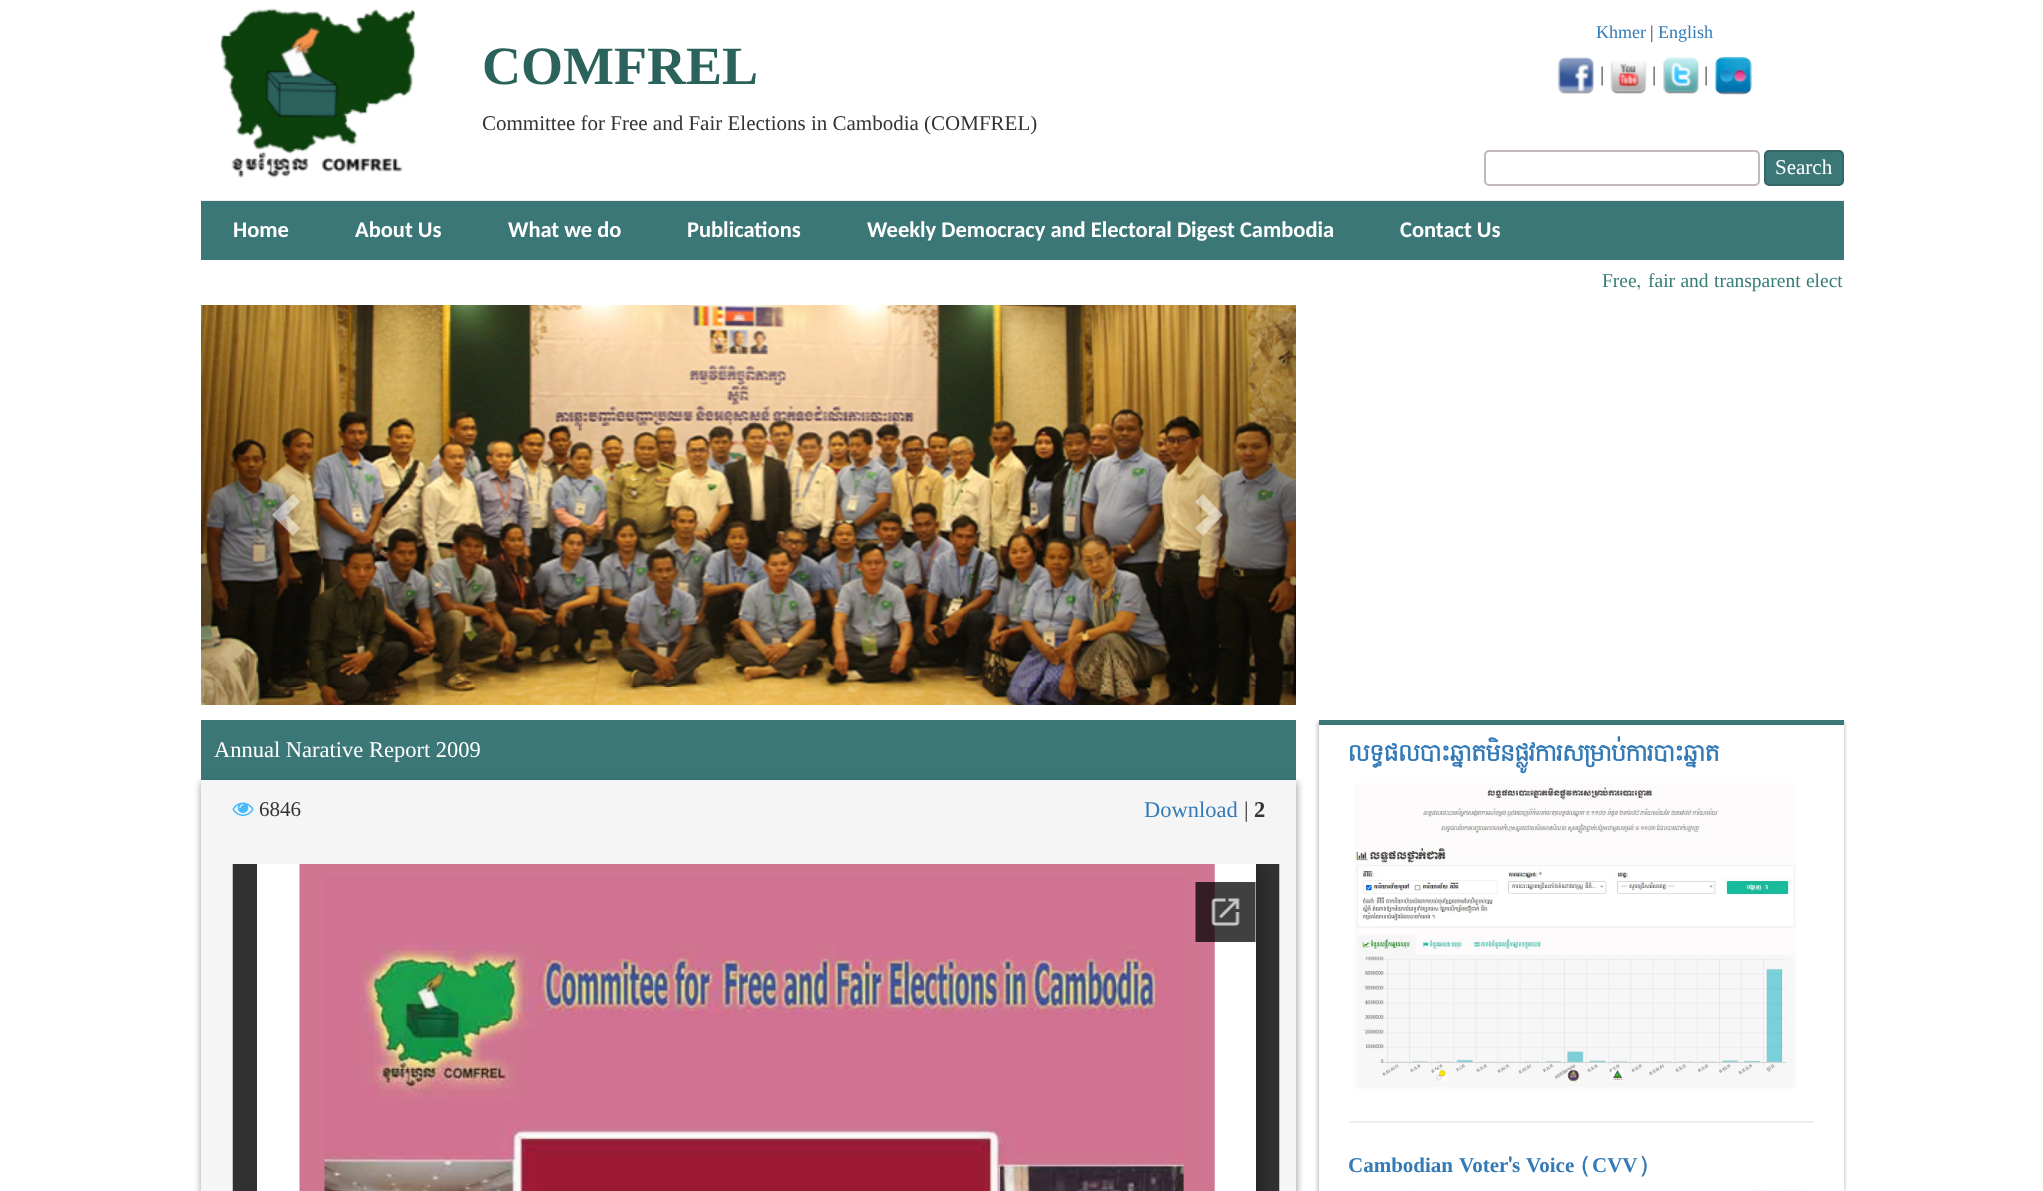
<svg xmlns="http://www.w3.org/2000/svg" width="2043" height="1191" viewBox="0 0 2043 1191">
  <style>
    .t1 { font: bold 54px Liberation Serif; fill: #2b635c; }
    .t2 { font: 21px Liberation Serif; fill: #333; }
    .t3 { font: 18px Liberation Serif; fill: #337ab7; }
    .t4 { font: 18px Liberation Serif; fill: #333; }
    .t5 { font: 21px Liberation Serif; fill: #fff; }
    .t6 { font: bold 22.5px Carlito; fill: #fff; }
    .t7 { font: 19.5px Liberation Serif; fill: #367d75; }
    .t8 { font: 19.5px Siemreap; fill: #367d75; }
    .t9 { font: 22.5px Liberation Serif; fill: #fff; }
    .t10 { font: 22.5px Liberation Serif; fill: #337ab7; }
    .t11 { font: 22.5px Liberation Serif; fill: #333; }
    .t12 { font: bold 22.5px Liberation Serif; fill: #333; }
    .t13 { font: bold 21px Content; fill: #337ab7; }
    .t14 { font: bold 21px Liberation Serif; fill: #337ab7; }
  </style>
  <rect width="100%" height="100%" fill="#fff"/>
  <rect x="201" y="200" width="1643" height="1" fill="#eee"/>
  <image x="220" y="8" width="196" height="170" href="images/1.png"/>
  <text x="482" y="84" class="t1">COMFREL</text>
  <text x="482" y="130" class="t2">Committee for Free and Fair Elections in Cambodia (COMFREL)</text>
  <text x="1596" y="38" class="t3">Khmer</text>
  <text x="1650" y="38" class="t4">|</text>
  <text x="1658" y="38" class="t3">English</text>
  <image x="1557" y="57" width="38" height="37" href="images/2.png"/>
  <text x="1600" y="81" class="t2">|</text>
  <image x="1610" y="60" width="37" height="34" href="images/3.png"/>
  <text x="1652" y="81" class="t2">|</text>
  <image x="1663" y="57" width="36" height="37" href="images/4.png"/>
  <text x="1704" y="81" class="t2">|</text>
  <image x="1714" y="57" width="38" height="38" href="images/5.png"/>
  <rect x="1485" y="151" width="274" height="34" rx="4" fill="none" stroke="#c2b8b8" stroke-width="2"/>
  <rect x="1765" y="151" width="78" height="34" rx="4" fill="#3c7777" stroke="#366" stroke-width="2"/>
  <text x="1775" y="174" class="t5">Search</text>
  <rect x="201" y="201" width="1643" height="59" fill="#3c7777"/>
  <text x="233" y="237" class="t6">Home</text>
  <text x="355" y="237" class="t6">About Us</text>
  <text x="508" y="237" class="t6">What we do</text>
  <text x="687" y="237" class="t6">Publications</text>
  <text x="867" y="237" class="t6">Weekly Democracy and Electoral Digest Cambodia</text>
  <text x="1400" y="237" class="t6">Contact Us</text>
  <text x="1602" y="287" class="t7">Free</text>
  <text x="1636" y="287" class="t8">,</text>
  <text x="1648" y="287" word-spacing="0.5" class="t7">fair and transparent elect</text>
  <image x="201" y="305" width="1095" height="400" href="images/6.png"/>
  <path d="M300 502L287 515L300 528L293 536L272 515L293 494Z" fill="#ffffff80"/>
  <path d="M1223 515L1203 536L1195 528L1209 515L1195 502L1203 494Z" fill="#ffffff80"/>
  <rect x="201" y="720" width="1095" height="60" fill="#3c7777"/>
  <text x="214" y="757" class="t9">Annual Narative Report 2009</text>
  <rect x="200" y="782" width="1098" height="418" fill="#0000004d" filter="blur(3px)"/>
  <rect x="201" y="780" width="1095" height="411" fill="#f5f5f5"/>
  <image x="232" y="802" width="22" height="14" href="images/7.png"/>
  <text x="259" y="816" class="t2">6846</text>
  <text x="1144" y="817" class="t10">Download</text>
  <text x="1244" y="817" class="t11">|</text>
  <text x="1254" y="817" class="t12">2</text>
  <image x="232" y="864" width="1048" height="327" href="images/8.png"/>
  <rect x="1317" y="722" width="528" height="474" fill="#00000033" filter="blur(1.5px)"/>
  <rect x="1319" y="725" width="525" height="466" fill="#fff"/>
  <rect x="1319" y="720" width="525" height="5" fill="#3c7777"/>
  <text x="1348" y="761" class="t13">លទ្ធផលបោះឆ្នោតមិនផ្លូវការសម្រាប់ការបោះឆ្នោត</text>
  <image x="1354" y="783" width="443" height="306" href="images/9.png"/>
  <rect x="1349" y="1121" width="465" height="2" fill="#eee"/>
  <text x="1348" y="1172" word-spacing="1" class="t14">Cambodian Voter</text>
  <text x="1508" y="1172" class="t13">'</text>
  <text x="1512" y="1172" word-spacing="1" class="t14">s Voice</text>
  <text x="1580" y="1172" class="t13">(</text>
  <text x="1592" y="1172" class="t14">CVV</text>
  <text x="1637" y="1172" class="t13">)</text>
  <image x="1409" y="1189" width="394" height="2" href="images/10.png"/>
</svg>
